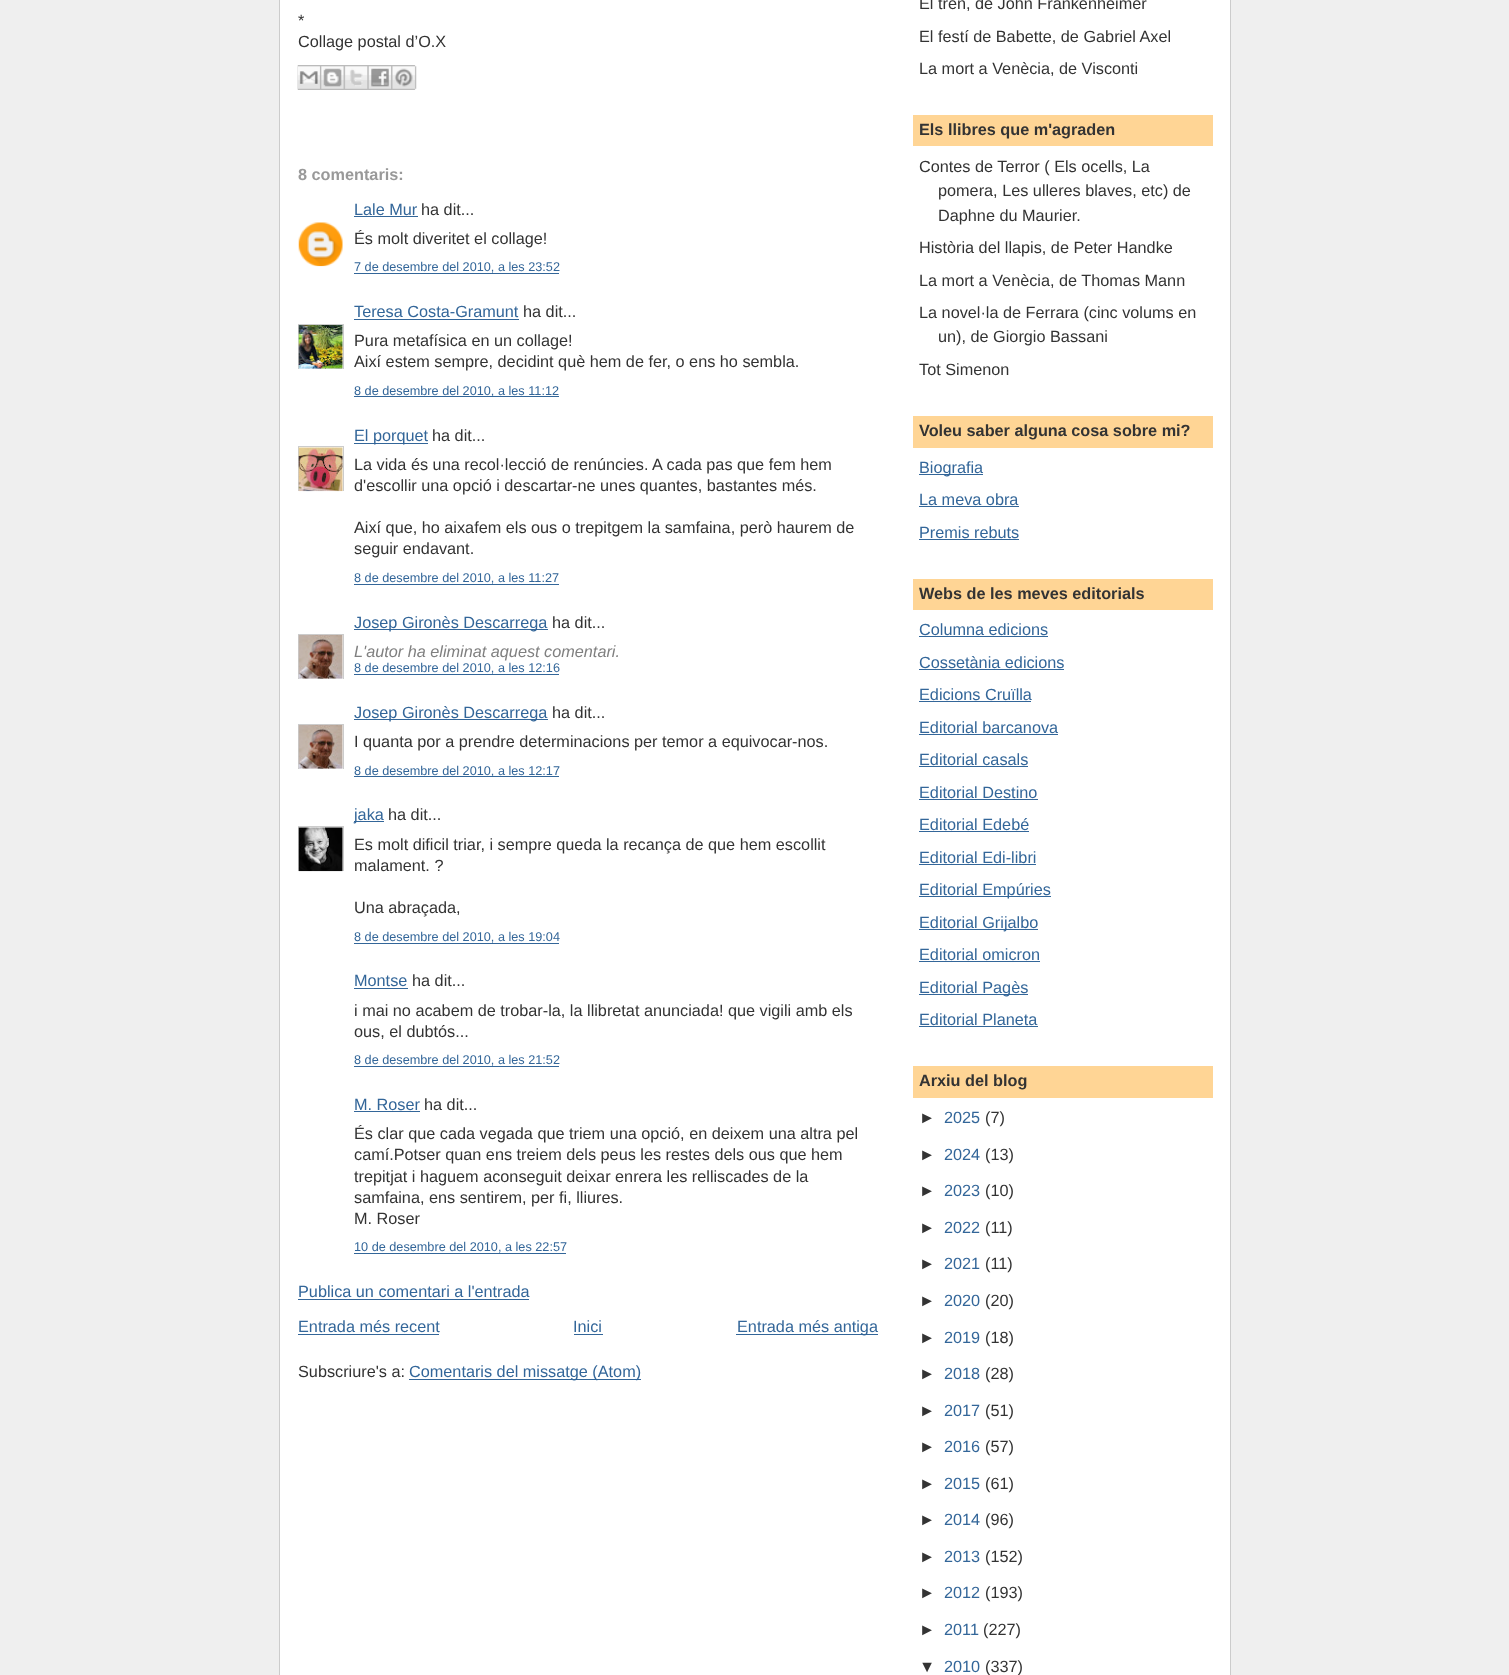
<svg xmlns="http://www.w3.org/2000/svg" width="1509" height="1675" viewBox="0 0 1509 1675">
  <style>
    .t1 { font: 16.25px Liberation Sans; fill: #333; }
    .t2 { font: bold 16.25px Liberation Sans; fill: #999; }
    .t3 { font: 16.25px Liberation Sans; fill: #369; }
    .t4 { font: 12.7px Liberation Sans; fill: #369; }
    .t5 { font: italic 16.25px Liberation Sans; fill: #808080; }
    .t6 { font: bold 16.25px Liberation Sans; fill: #333; }
  </style>
  <defs>
    <clipPath id="clip1"><rect x="298" y="324" width="46" height="45"/></clipPath>
    <clipPath id="clip2"><rect x="298" y="446" width="46" height="45"/></clipPath>
    <clipPath id="clip3"><rect x="298" y="634" width="46" height="45"/></clipPath>
    <clipPath id="clip4"><rect x="298" y="724" width="46" height="45"/></clipPath>
    <clipPath id="clip5"><rect x="298" y="826" width="46" height="45"/></clipPath>
  </defs>
  <rect width="100%" height="100%" fill="#efefef"/>
  <rect x="280" y="0" width="950" height="1675" fill="#fff"/>
  <rect x="1230" y="0" width="1" height="1675" fill="#ccc"/>
  <rect x="279" y="0" width="1" height="1675" fill="#ccc"/>
  <text x="298" y="26" class="t1">*</text>
  <text x="298" y="47" class="t1">Collage postal d’O.X</text>
  <image x="297" y="65" width="23" height="25" href="images/1.png"/>
  <image x="320" y="65" width="24" height="25" href="images/2.png"/>
  <image x="343" y="65" width="25" height="25" href="images/3.png"/>
  <image x="367" y="65" width="25" height="25" href="images/4.png"/>
  <image x="391" y="65" width="26" height="25" href="images/5.png"/>
  <text x="298" y="180" class="t2">8 comentaris:</text>
  <text x="354" y="215" class="t3">Lale Mur</text>
  <rect x="354" y="216" width="64" height="1" fill="#369"/>
  <text x="421" y="215" class="t1">ha dit...</text>
  <image x="298" y="222" width="45" height="45" href="images/6.png"/>
  <text x="354" y="244" class="t1">És molt diveritet el collage!</text>
  <text x="354" y="271" class="t4">7 de desembre del 2010, a les 23:52</text>
  <rect x="354" y="273" width="205" height="1" fill="#369"/>
  <text x="354" y="317" class="t3">Teresa Costa-Gramunt</text>
  <rect x="354" y="319" width="165" height="1" fill="#369"/>
  <text x="523" y="317" class="t1">ha dit...</text>
  <g clip-path="url(#clip1)">
    <rect x="298.5" y="324.5" width="45" height="45" fill="none" stroke="#ccc"/>
  </g>
  <image x="298" y="325" width="45" height="44" href="images/7.png"/>
  <text x="354" y="346" class="t1">Pura metafísica en un collage!</text>
  <text x="354" y="367" class="t1">Així estem sempre, decidint què hem de fer, o ens ho sembla.</text>
  <rect x="354" y="396" width="205" height="1" fill="#369"/>
  <text x="354" y="395" class="t4">8 de desembre del 2010, a les 11:12</text>
  <rect x="354" y="443" width="74" height="1" fill="#369"/>
  <text x="354" y="441" class="t3">El porquet</text>
  <text x="432" y="441" class="t1">ha dit...</text>
  <g clip-path="url(#clip2)">
    <rect x="298.5" y="446.5" width="45" height="46" fill="none" stroke="#ccc"/>
  </g>
  <image x="298" y="447" width="45" height="45" href="images/8.png"/>
  <text x="354" y="470" class="t1">La vida és una recol·lecció de renúncies. A cada pas que fem hem</text>
  <text x="354" y="491" class="t1">d'escollir una opció i descartar-ne unes quantes, bastantes més.</text>
  <text x="354" y="533" class="t1">Així que, ho aixafem els ous o trepitgem la samfaina, però haurem de</text>
  <text x="354" y="554" class="t1">seguir endavant.</text>
  <text x="354" y="582" class="t4">8 de desembre del 2010, a les 11:27</text>
  <rect x="354" y="584" width="205" height="1" fill="#369"/>
  <rect x="354" y="629" width="194" height="1" fill="#369"/>
  <text x="354" y="628" class="t3">Josep Gironès Descarrega</text>
  <text x="552" y="628" class="t1">ha dit...</text>
  <g clip-path="url(#clip3)">
    <rect x="298.5" y="634.5" width="45" height="45" fill="none" stroke="#ccc"/>
  </g>
  <image x="298" y="635" width="45" height="44" href="images/9.png"/>
  <text x="354" y="657" class="t5">L'autor ha eliminat aquest comentari.</text>
  <text x="354" y="672" class="t4">8 de desembre del 2010, a les 12:16</text>
  <rect x="354" y="674" width="205" height="1" fill="#369"/>
  <rect x="354" y="719" width="194" height="1" fill="#369"/>
  <text x="354" y="718" class="t3">Josep Gironès Descarrega</text>
  <text x="552" y="718" class="t1">ha dit...</text>
  <g clip-path="url(#clip4)">
    <rect x="298.5" y="724.5" width="45" height="45" fill="none" stroke="#ccc"/>
  </g>
  <image x="298" y="725" width="45" height="44" href="images/9.png"/>
  <text x="354" y="747" class="t1">I quanta por a prendre determinacions per temor a equivocar-nos.</text>
  <rect x="354" y="776" width="205" height="1" fill="#369"/>
  <text x="354" y="775" class="t4">8 de desembre del 2010, a les 12:17</text>
  <rect x="354" y="821" width="30" height="1" fill="#369"/>
  <text x="354" y="820" class="t3">jaka</text>
  <text x="388" y="820" class="t1">ha dit...</text>
  <g clip-path="url(#clip5)">
    <rect x="298.5" y="826.5" width="45" height="46" fill="none" stroke="#ccc"/>
  </g>
  <image x="298" y="827" width="45" height="45" href="images/10.png"/>
  <text x="354" y="850" class="t1">Es molt dificil triar, i sempre queda la recança de que hem escollit</text>
  <text x="354" y="871" class="t1">malament. ?</text>
  <text x="354" y="913" class="t1">Una abraçada,</text>
  <text x="354" y="941" class="t4">8 de desembre del 2010, a les 19:04</text>
  <rect x="354" y="943" width="205" height="1" fill="#369"/>
  <text x="354" y="986" class="t3">Montse</text>
  <rect x="354" y="988" width="54" height="1" fill="#369"/>
  <text x="412" y="986" class="t1">ha dit...</text>
  <text x="354" y="1016" class="t1">i mai no acabem de trobar-la, la llibretat anunciada! que vigili amb els</text>
  <text x="354" y="1037" class="t1">ous, el dubtós...</text>
  <text x="354" y="1064" class="t4">8 de desembre del 2010, a les 21:52</text>
  <rect x="354" y="1066" width="205" height="1" fill="#369"/>
  <text x="354" y="1110" class="t3">M. Roser</text>
  <rect x="354" y="1111" width="66" height="1" fill="#369"/>
  <text x="424" y="1110" class="t1">ha dit...</text>
  <text x="354" y="1139" class="t1">És clar que cada vegada que triem una opció, en deixem una altra pel</text>
  <text x="354" y="1160" class="t1">camí.Potser quan ens treiem dels peus les restes dels ous que hem</text>
  <text x="354" y="1182" class="t1">trepitjat i haguem aconseguit deixar enrera les relliscades de la</text>
  <text x="354" y="1203" class="t1">samfaina, ens sentirem, per fi, lliures.</text>
  <text x="354" y="1224" class="t1">M. Roser</text>
  <text x="354" y="1251" class="t4">10 de desembre del 2010, a les 22:57</text>
  <rect x="354" y="1253" width="212" height="1" fill="#369"/>
  <text x="298" y="1297" class="t3">Publica un comentari a l'entrada</text>
  <rect x="298" y="1299" width="231" height="1" fill="#369"/>
  <text x="298" y="1332" class="t3">Entrada més recent</text>
  <rect x="298" y="1334" width="141" height="1" fill="#369"/>
  <text x="573" y="1332" class="t3">Inici</text>
  <rect x="574" y="1334" width="29" height="1" fill="#369"/>
  <rect x="736" y="1334" width="142" height="1" fill="#369"/>
  <text x="737" y="1332" class="t3">Entrada més antiga</text>
  <text x="298" y="1377" class="t1">Subscriure's a:</text>
  <rect x="409" y="1379" width="232" height="1" fill="#369"/>
  <text x="409" y="1377" class="t3">Comentaris del missatge (Atom)</text>
  <text x="919" y="9" class="t1">El tren, de John Frankenheimer</text>
  <text x="919" y="42" class="t1">El festí de Babette, de Gabriel Axel</text>
  <text x="919" y="74" class="t1">La mort a Venècia, de Visconti</text>
  <rect x="913" y="115" width="300" height="31" fill="#ffd595"/>
  <text x="919" y="135" class="t6">Els llibres que m'agraden</text>
  <text x="919" y="172" class="t1">Contes de Terror ( Els ocells, La</text>
  <text x="938" y="196" class="t1">pomera, Les ulleres blaves, etc) de</text>
  <text x="938" y="221" class="t1">Daphne du Maurier.</text>
  <text x="919" y="253" class="t1">Història del llapis, de Peter Handke</text>
  <text x="919" y="286" class="t1">La mort a Venècia, de Thomas Mann</text>
  <text x="919" y="318" class="t1">La novel·la de Ferrara (cinc volums en</text>
  <text x="938" y="342" class="t1">un), de Giorgio Bassani</text>
  <text x="919" y="375" class="t1">Tot Simenon</text>
  <rect x="913" y="416" width="300" height="32" fill="#ffd595"/>
  <text x="919" y="436" class="t6">Voleu saber alguna cosa sobre mi?</text>
  <rect x="919" y="474" width="64" height="1" fill="#369"/>
  <text x="919" y="473" class="t3">Biografia</text>
  <text x="919" y="505" class="t3">La meva obra</text>
  <rect x="919" y="506" width="100" height="1" fill="#369"/>
  <text x="919" y="538" class="t3">Premis rebuts</text>
  <rect x="919" y="539" width="100" height="1" fill="#369"/>
  <rect x="913" y="579" width="300" height="31" fill="#ffd595"/>
  <text x="919" y="599" class="t6">Webs de les meves editorials</text>
  <text x="919" y="635" class="t3">Columna edicions</text>
  <rect x="919" y="636" width="129" height="1" fill="#369"/>
  <text x="919" y="668" class="t3">Cossetània edicions</text>
  <rect x="919" y="669" width="145" height="1" fill="#369"/>
  <text x="919" y="700" class="t3">Edicions Cruïlla</text>
  <rect x="919" y="701" width="112" height="1" fill="#369"/>
  <text x="919" y="733" class="t3">Editorial barcanova</text>
  <rect x="919" y="734" width="139" height="1" fill="#369"/>
  <text x="919" y="765" class="t3">Editorial casals</text>
  <rect x="919" y="766" width="109" height="1" fill="#369"/>
  <text x="919" y="798" class="t3">Editorial Destino</text>
  <rect x="919" y="799" width="119" height="1" fill="#369"/>
  <text x="919" y="830" class="t3">Editorial Edebé</text>
  <rect x="919" y="831" width="110" height="1" fill="#369"/>
  <text x="919" y="863" class="t3">Editorial Edi-libri</text>
  <rect x="919" y="864" width="117" height="1" fill="#369"/>
  <rect x="919" y="896" width="132" height="1" fill="#369"/>
  <text x="919" y="895" class="t3">Editorial Empúries</text>
  <rect x="919" y="929" width="119" height="1" fill="#369"/>
  <text x="919" y="928" class="t3">Editorial Grijalbo</text>
  <text x="919" y="960" class="t3">Editorial omicron</text>
  <rect x="919" y="961" width="121" height="1" fill="#369"/>
  <rect x="919" y="994" width="109" height="1" fill="#369"/>
  <text x="919" y="993" class="t3">Editorial Pagès</text>
  <text x="919" y="1025" class="t3">Editorial Planeta</text>
  <rect x="919" y="1026" width="119" height="1" fill="#369"/>
  <rect x="913" y="1066" width="300" height="32" fill="#ffd595"/>
  <text x="919" y="1086" class="t6">Arxiu del blog</text>
  <text x="919" y="1123" class="t1">►</text>
  <text x="944" y="1123" class="t3">2025</text>
  <text x="985" y="1123" class="t1">(7)</text>
  <text x="919" y="1160" class="t1">►</text>
  <text x="944" y="1160" class="t3">2024</text>
  <text x="985" y="1160" class="t1">(13)</text>
  <text x="919" y="1196" class="t1">►</text>
  <text x="944" y="1196" class="t3">2023</text>
  <text x="985" y="1196" class="t1">(10)</text>
  <text x="919" y="1233" class="t1">►</text>
  <text x="944" y="1233" class="t3">2022</text>
  <text x="985" y="1233" class="t1">(11)</text>
  <text x="919" y="1269" class="t1">►</text>
  <text x="944" y="1269" class="t3">2021</text>
  <text x="985" y="1269" class="t1">(11)</text>
  <text x="919" y="1306" class="t1">►</text>
  <text x="944" y="1306" class="t3">2020</text>
  <text x="985" y="1306" class="t1">(20)</text>
  <text x="919" y="1343" class="t1">►</text>
  <text x="944" y="1343" class="t3">2019</text>
  <text x="985" y="1343" class="t1">(18)</text>
  <text x="919" y="1379" class="t1">►</text>
  <text x="944" y="1379" class="t3">2018</text>
  <text x="985" y="1379" class="t1">(28)</text>
  <text x="919" y="1416" class="t1">►</text>
  <text x="944" y="1416" class="t3">2017</text>
  <text x="985" y="1416" class="t1">(51)</text>
  <text x="919" y="1452" class="t1">►</text>
  <text x="944" y="1452" class="t3">2016</text>
  <text x="985" y="1452" class="t1">(57)</text>
  <text x="919" y="1489" class="t1">►</text>
  <text x="944" y="1489" class="t3">2015</text>
  <text x="985" y="1489" class="t1">(61)</text>
  <text x="919" y="1525" class="t1">►</text>
  <text x="944" y="1525" class="t3">2014</text>
  <text x="985" y="1525" class="t1">(96)</text>
  <text x="919" y="1562" class="t1">►</text>
  <text x="944" y="1562" class="t3">2013</text>
  <text x="985" y="1562" class="t1">(152)</text>
  <text x="919" y="1598" class="t1">►</text>
  <text x="944" y="1598" class="t3">2012</text>
  <text x="985" y="1598" class="t1">(193)</text>
  <text x="919" y="1635" class="t1">►</text>
  <text x="944" y="1635" class="t3">2011</text>
  <text x="983" y="1635" class="t1">(227)</text>
  <text x="919" y="1672" class="t1">▼</text>
  <text x="944" y="1672" class="t3">2010</text>
  <text x="985" y="1672" class="t1">(337)</text>
</svg>
